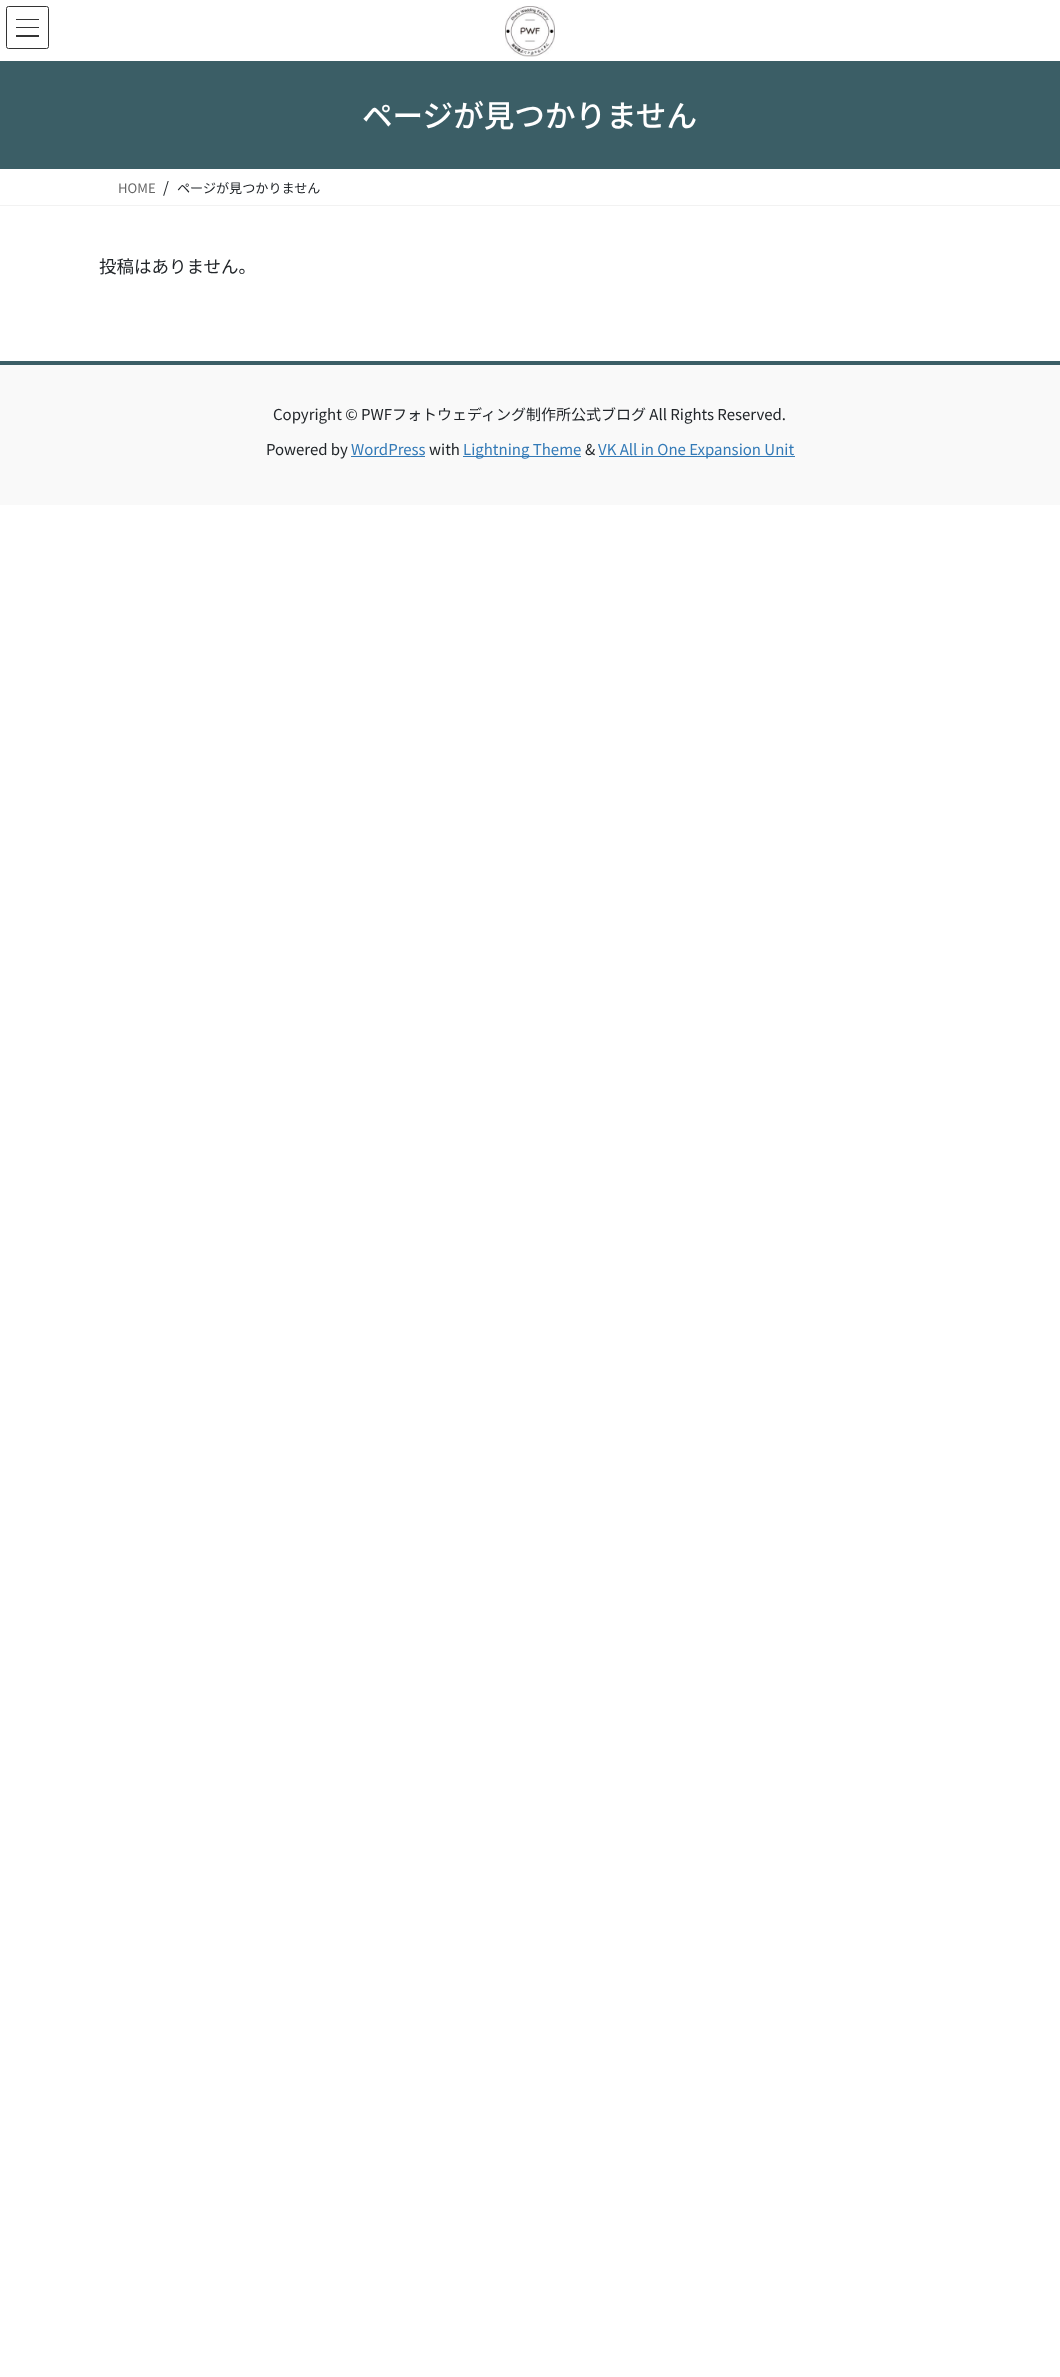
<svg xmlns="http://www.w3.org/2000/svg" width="1060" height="2377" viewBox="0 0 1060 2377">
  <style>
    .t1 { font: 500 30.6px Noto Sans JP; fill: #fff; }
    .t2 { font: 13.1px Noto Sans JP; fill: #666; }
    .t3 { font: 15px Noto Sans JP; fill: #212529; }
    .t4 { font: 13.1px Noto Sans JP; fill: #212529; }
    .t5 { font: 17.5px Noto Sans JP; fill: #212529; }
    .t6 { font: 15px Noto Sans JP; fill: #337ab7; }
  </style>
  <rect width="100%" height="100%" fill="#fff"/>
  <rect x="16" y="19" width="23" height="1" fill="#333"/>
  <rect x="16" y="27" width="23" height="1" fill="#333"/>
  <rect x="16" y="35" width="23" height="2" fill="#333"/>
  <rect x="6.5" y="6.5" width="42" height="42" rx="2" fill="none" stroke="#333"/>
  <image x="505" y="6" width="50" height="51" href="images/1.png"/>
  <rect x="0" y="61" width="1060" height="108" fill="#3b5e66"/>
  <text x="362" y="127" class="t1">ページが見つかりません</text>
  <rect x="0" y="205" width="1060" height="1" fill="#f2f2f2"/>
  <text x="118" y="193" class="t2">HOME</text>
  <text x="163" y="193" class="t3">/</text>
  <text x="177" y="193" class="t4">ページが見つかりません</text>
  <text x="99" y="273" class="t5">投稿はありません。</text>
  <rect x="0" y="365" width="1060" height="140" fill="#f9f9f9"/>
  <rect x="0" y="361" width="1060" height="4" fill="#3b5e66"/>
  <text x="273" y="420" class="t3">Copyright © PWFフォトウェディング制作所公式ブログ All Rights Reserved.</text>
  <text x="266" y="455" class="t3">Powered by</text>
  <text x="351" y="455" class="t6">WordPress</text>
  <rect x="351" y="456" width="74" height="1" fill="#337ab7"/>
  <text x="429" y="455" class="t3">with</text>
  <rect x="463" y="456" width="118" height="1" fill="#337ab7"/>
  <text x="463" y="455" class="t6">Lightning Theme</text>
  <text x="585" y="455" class="t3">&amp;</text>
  <rect x="599" y="456" width="196" height="1" fill="#337ab7"/>
  <text x="598" y="455" class="t6">VK All in One Expansion Unit</text>
</svg>
